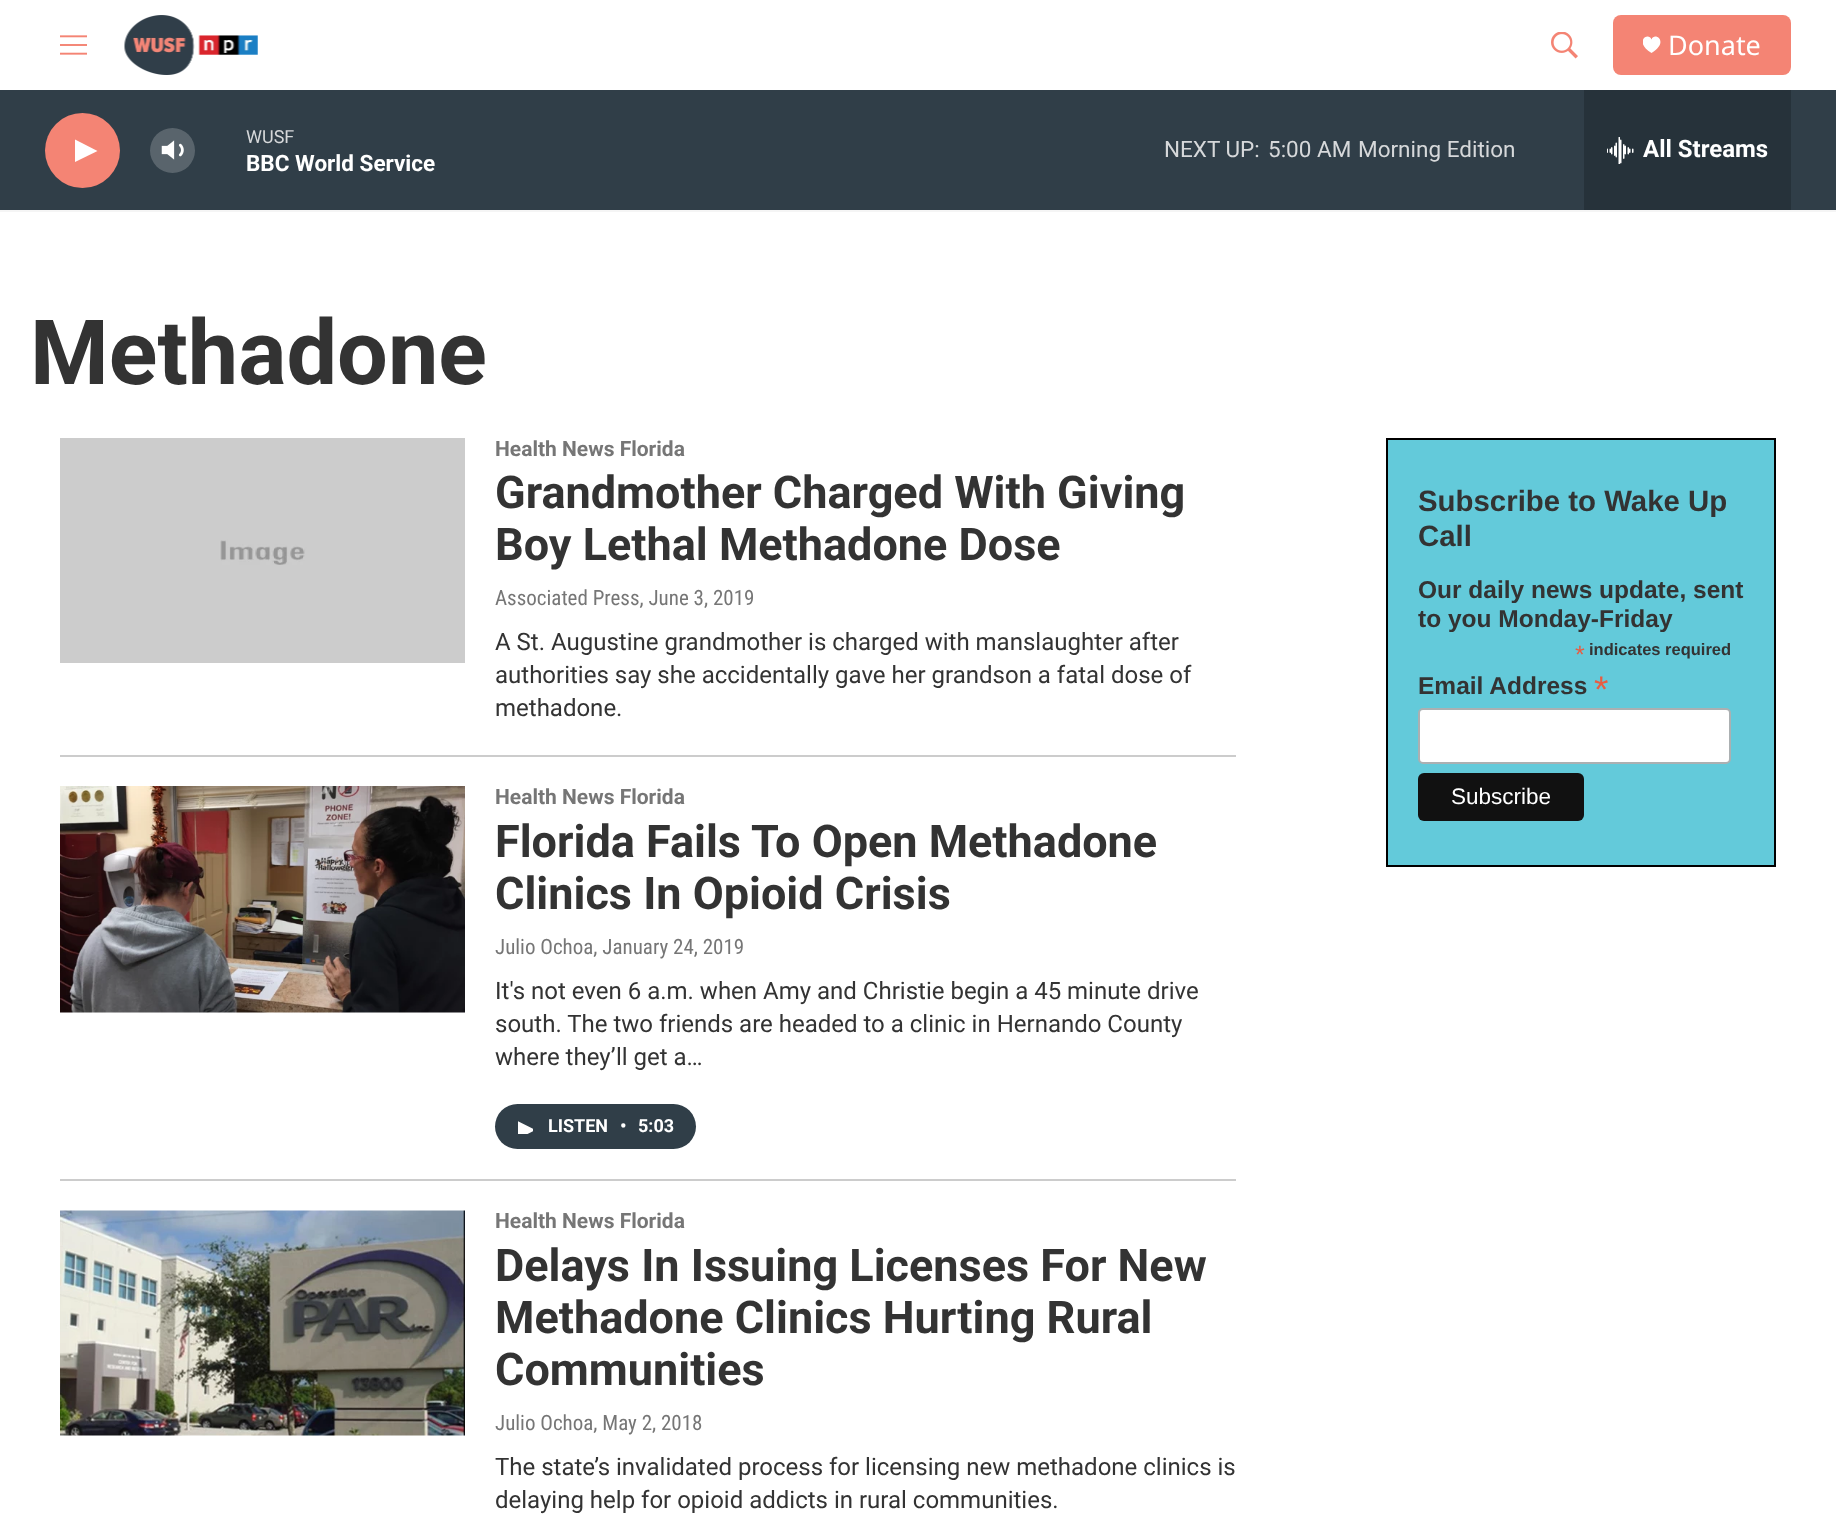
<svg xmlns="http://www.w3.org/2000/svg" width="1836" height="1534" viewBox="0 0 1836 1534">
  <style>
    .t1 { font: 27px Noto Sans; fill: #fff; }
    .t2 { font: 18px Roboto; fill: #d6d8da; }
    .t3 { font: bold 22.5px 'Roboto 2'; fill: #fff; }
    .t4 { font: 22.5px Roboto; fill: #d6d8da; }
    .t5 { font: bold 24px 'Roboto 2'; fill: #fff; }
    .t6 { font: bold 90px Roboto; fill: #333; }
    .t7 { font: bold 21px Roboto; fill: #767676; }
    .t8 { font: bold 45px Roboto; fill: #333; }
    .t9 { font: 21px Roboto Condensed; fill: #767676; }
    .t10 { font: 24px Roboto; fill: #333; }
    .t11 { font: bold 18px 'Roboto 2'; fill: #fff; }
    .t12 { font: bold 29.4px Liberation Sans; fill: #333; }
    .t13 { font: bold 24.5px Liberation Sans; fill: #333; }
    .t14 { font: 25px Liberation Sans; fill: #e85c41; }
    .t15 { font: bold 16.5px Liberation Sans; fill: #333; }
    .t16 { font: 37px Liberation Sans; fill: #e85c41; }
    .t17 { font: 22.5px Liberation Sans; fill: #fff; }
  </style>
  <defs>
    <clipPath id="clip1"><rect x="1643" y="36" width="18" height="18"/></clipPath>
    <clipPath id="clip2"><rect x="518" y="1119" width="15" height="15"/></clipPath>
  </defs>
  <rect width="100%" height="100%" fill="#fff"/>
  <rect x="0" y="210" width="1836" height="2" fill="#f5f5f5"/>
  <image x="60" y="35" width="27" height="20" href="images/1.png"/>
  <image x="124" y="15" width="134" height="60" href="images/2.png"/>
  <image x="1551" y="32" width="27" height="27" href="images/3.png"/>
  <rect x="1613" y="15" width="178" height="60" rx="8" fill="#f48474"/>
  <g clip-path="url(#clip1)">
    <path d="M1651.5 39.5C1648.5 31.5 1633 41.5 1651.5 53C1670 41.5 1654.5 31.5 1651.5 39.5Z" fill="#fff"/>
  </g>
  <text x="1668" y="55" class="t1">Donate</text>
  <rect x="0" y="90" width="1836" height="120" fill="#303e48"/>
  <circle cx="82.5" cy="150.5" r="37.5" fill="#f48474"/>
  <path d="M75 139.5L97.5 151L75 162Z" fill="#fff"/>
  <image x="161" y="140" width="23" height="20" href="images/4.png"/>
  <circle cx="172.5" cy="150.5" r="22.5" fill="#ffffff33"/>
  <text x="246" y="143" class="t2">WUSF</text>
  <text x="246" y="171" class="t3">BBC World Service</text>
  <text x="1164" y="157" class="t4">NEXT UP:</text>
  <text x="1268" y="157" class="t4">5:00 AM</text>
  <text x="1358" y="157" class="t4">Morning Edition</text>
  <rect x="1584" y="90" width="207" height="120" fill="#26323a"/>
  <image x="1607" y="137" width="27" height="27" href="images/5.png"/>
  <text x="1643" y="157" class="t5">All Streams</text>
  <text x="30" y="384" class="t6">Methadone</text>
  <rect x="60" y="755" width="1176" height="2" fill="#ccc"/>
  <image x="60" y="438" width="405" height="225" href="images/6.png"/>
  <text x="495" y="456" class="t7">Health News Florida</text>
  <text x="495" y="508" class="t8">Grandmother Charged With Giving</text>
  <text x="495" y="560" class="t8">Boy Lethal Methadone Dose</text>
  <text x="495" y="605" class="t9">Associated Press, June 3, 2019</text>
  <text x="495" y="650" class="t10">A St. Augustine grandmother is charged with manslaughter after</text>
  <text x="495" y="683" class="t10">authorities say she accidentally gave her grandson a fatal dose of</text>
  <text x="495" y="716" class="t10">methadone.</text>
  <rect x="60" y="1179" width="1176" height="2" fill="#ccc"/>
  <image x="60" y="786" width="405" height="227" href="images/7.png"/>
  <text x="495" y="804" class="t7">Health News Florida</text>
  <text x="495" y="857" class="t8">Florida Fails To Open Methadone</text>
  <text x="495" y="909" class="t8">Clinics In Opioid Crisis</text>
  <text x="495" y="954" class="t9">Julio Ochoa, January 24, 2019</text>
  <text x="495" y="999" class="t10">It's not even 6 a.m. when Amy and Christie begin a 45 minute drive</text>
  <text x="495" y="1032" class="t10">south. The two friends are headed to a clinic in Hernando County</text>
  <text x="495" y="1065" class="t10">where they’ll get a…</text>
  <rect x="495" y="1104" width="201" height="45" rx="22.5" fill="#303e48"/>
  <g clip-path="url(#clip2)">
    <path d="M517.5 1121L535.5 1130L517.5 1139Z" fill="#fff"/>
  </g>
  <text x="548" y="1132" class="t11">LISTEN</text>
  <text x="620" y="1132" class="t11">•</text>
  <text x="638" y="1132" class="t11">5:03</text>
  <image x="60" y="1210" width="405" height="226" href="images/8.png"/>
  <text x="495" y="1228" class="t7">Health News Florida</text>
  <text x="495" y="1281" class="t8">Delays In Issuing Licenses For New</text>
  <text x="495" y="1333" class="t8">Methadone Clinics Hurting Rural</text>
  <text x="495" y="1385" class="t8">Communities</text>
  <text x="495" y="1430" class="t9">Julio Ochoa, May 2, 2018</text>
  <text x="495" y="1475" class="t10">The state’s invalidated process for licensing new methadone clinics is</text>
  <text x="495" y="1508" class="t10">delaying help for opioid addicts in rural communities.</text>
  <rect x="1387" y="439" width="388" height="427" fill="#63cada" stroke="#000" stroke-width="2"/>
  <text x="1418" y="511" class="t12">Subscribe to Wake Up</text>
  <text x="1418" y="546" class="t12">Call</text>
  <text x="1418" y="598" class="t13">Our daily news update, sent</text>
  <text x="1418" y="627" class="t13">to you Monday-Friday</text>
  <text x="1575" y="663" class="t14">*</text>
  <text x="1589" y="655" class="t15">indicates required</text>
  <text x="1418" y="694" class="t13">Email Address</text>
  <text x="1594" y="702" class="t16">*</text>
  <rect x="1419" y="709" width="311" height="54" rx="4" fill="#fff" stroke="#abb0b2" stroke-width="2"/>
  <rect x="1418" y="773" width="166" height="48" rx="6" fill="#111"/>
  <text x="1451" y="804" class="t17">Subscribe</text>
</svg>
